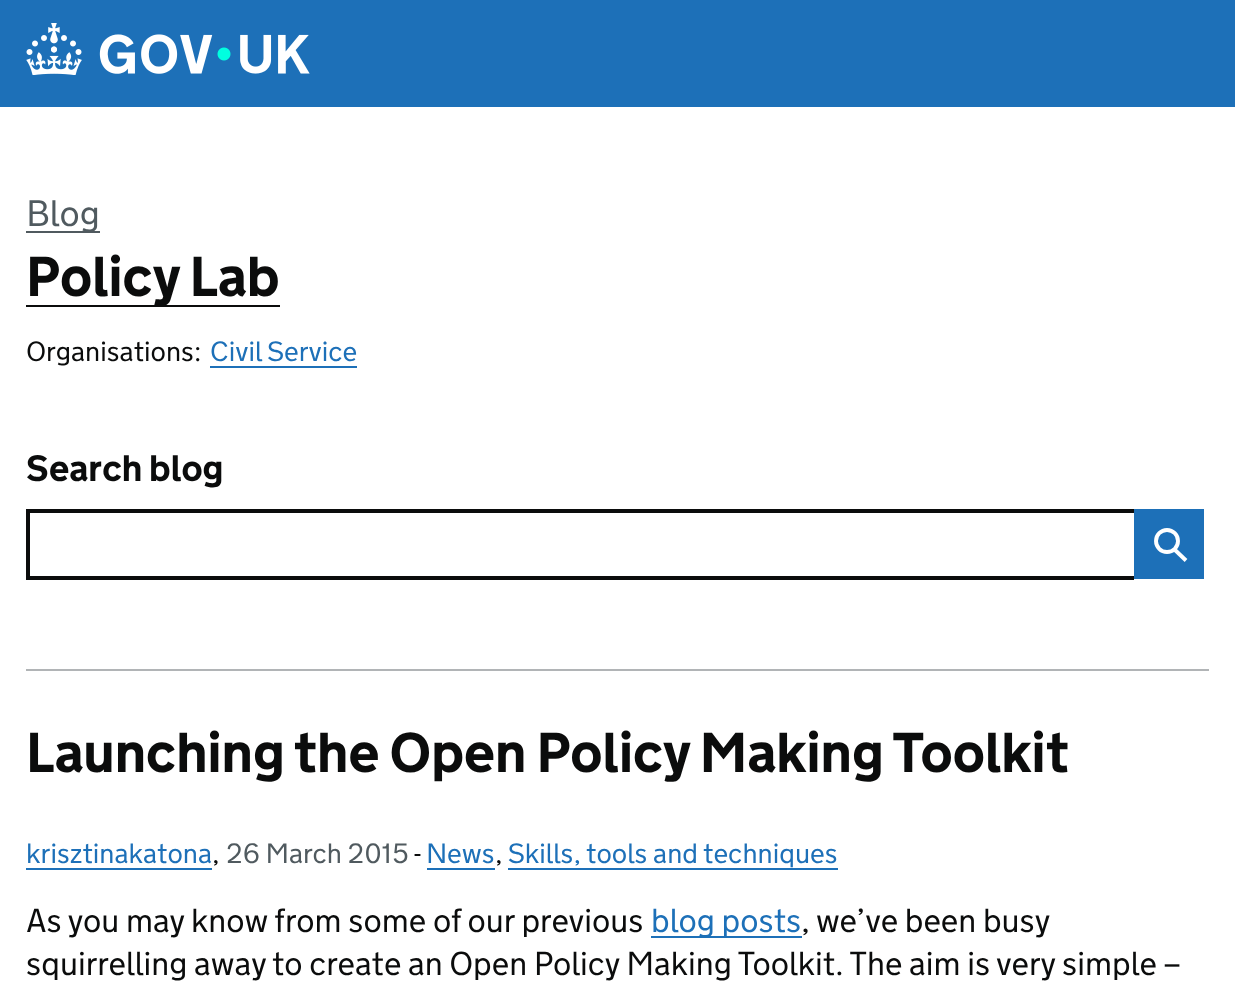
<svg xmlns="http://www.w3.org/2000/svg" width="1235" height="1000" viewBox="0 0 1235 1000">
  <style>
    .t1 { font: 300 36.75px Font; fill: #505a5f; }
    .t2 { font: bold 56px Font; fill: #0b0c0c; }
    .t3 { font: 300 28px Font; fill: #0b0c0c; }
    .t4 { font: 300 28px Font; fill: #1d70b8; }
    .t5 { font: bold 36.75px Font; fill: #0b0c0c; }
    .t6 { font: 300 28px Font; fill: #505a5f; }
    .t7 { font: 300 33.25px Font; fill: #0b0c0c; }
    .t8 { font: 300 33.25px Font; fill: #1d70b8; }
  </style>
  <rect width="100%" height="100%" fill="#fff"/>
  <rect x="0" y="0" width="1235" height="107" fill="#1d70b8"/>
  <image x="26" y="23" width="284" height="52" href="images/1.png"/>
  <rect x="26" y="231" width="74" height="2" fill="#505a5f"/>
  <text x="26" y="226" class="t1">Blog</text>
  <rect x="26" y="305" width="254" height="2" fill="#0b0c0c"/>
  <text x="26" y="296" class="t2">Policy Lab</text>
  <text x="26" y="361" class="t3">Organisations:</text>
  <text x="210" y="361" class="t4">Civil Service</text>
  <rect x="210" y="366" width="147" height="2" fill="#1d70b8"/>
  <text x="26" y="481" class="t5">Search blog</text>
  <rect x="26" y="509" width="1108" height="4" fill="#0b0c0c"/>
  <rect x="26" y="576" width="1108" height="4" fill="#0b0c0c"/>
  <rect x="26" y="509" width="4" height="70" fill="#0b0c0c"/>
  <rect x="1134" y="509" width="70" height="70" fill="#1d70b8"/>
  <circle cx="1167" cy="541" r="11" fill="none" stroke="#fff" stroke-width="3.9"/>
  <path d="M1174.5 549.5L1186 560.5" fill="none" stroke="#fff" stroke-width="3.9"/>
  <rect x="26" y="669" width="1183" height="2" fill="#b1b4b6"/>
  <text x="26" y="772" class="t2">Launching the Open Policy Making Toolkit</text>
  <text x="26" y="863" class="t4">krisztinakatona</text>
  <rect x="26" y="868" width="186" height="2" fill="#1d70b8"/>
  <text x="226" y="863" class="t6">26 March 2015</text>
  <text x="414" y="863" class="t3">-</text>
  <text x="426" y="863" class="t4">News</text>
  <rect x="427" y="868" width="68" height="2" fill="#1d70b8"/>
  <text x="508" y="863" class="t4">Skills, tools and techniques</text>
  <rect x="508" y="868" width="330" height="2" fill="#1d70b8"/>
  <text x="212" y="863" class="t3">,</text>
  <text x="495" y="863" class="t3">,</text>
  <text x="26" y="932" class="t7">As you may know from some of our previous</text>
  <rect x="651" y="936" width="151" height="2" fill="#1d70b8"/>
  <text x="651" y="932" class="t8">blog posts</text>
  <text x="801" y="932" class="t7">, we’ve been busy</text>
  <text x="26" y="975" class="t7">squirrelling away to create an Open Policy Making Toolkit. The aim is very simple –</text>
</svg>
